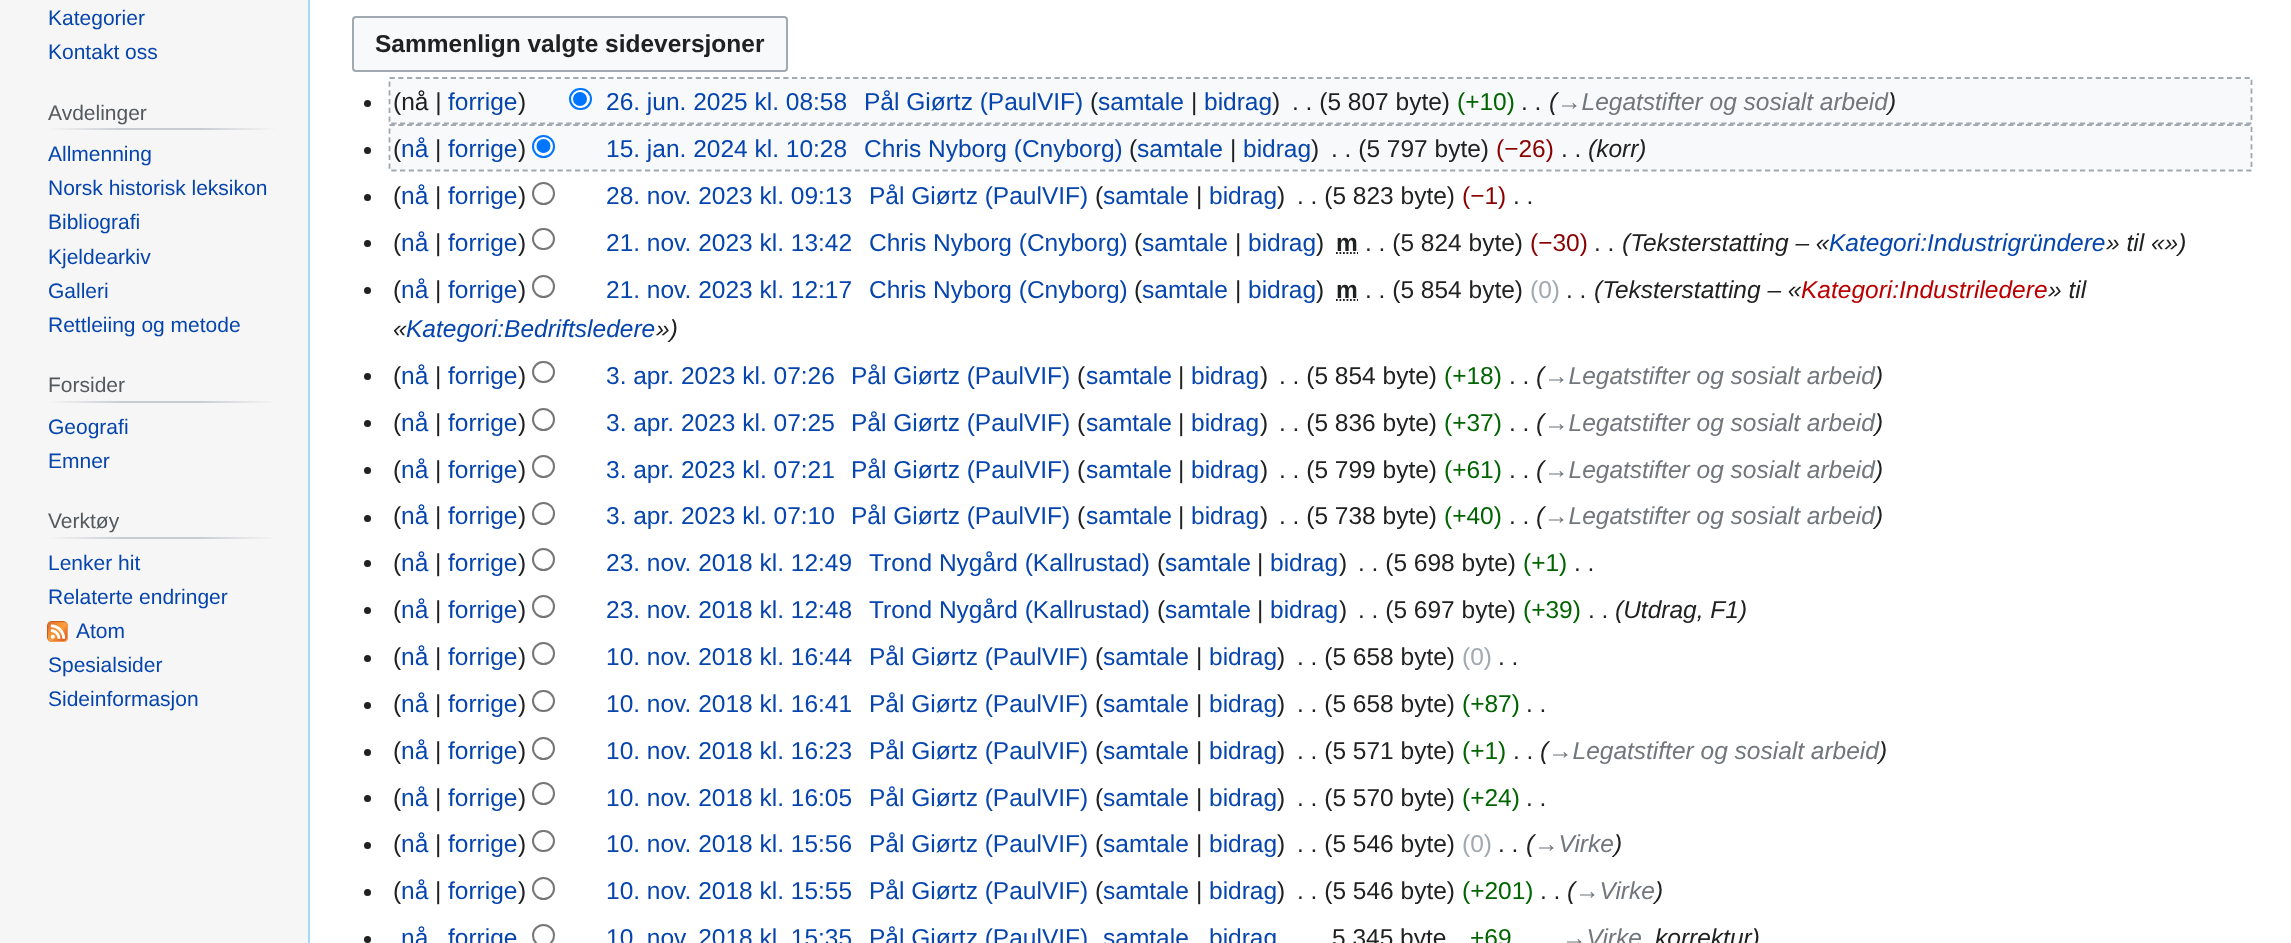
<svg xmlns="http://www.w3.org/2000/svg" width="2291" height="943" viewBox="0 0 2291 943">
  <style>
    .t1 { font: 21px Liberation Sans; fill: #0645ad; }
    .t2 { font: 21px Liberation Sans; fill: #54595d; }
    .t3 { font: bold 24.5px Liberation Sans; fill: #202122; }
    .t4 { font: 24.5px Liberation Sans; fill: #202122; }
    .t5 { font: 24.5px Liberation Sans; fill: #0645ad; }
    .t6 { font: 24.5px Liberation Sans; fill: #006400; }
    .t7 { font: italic 24.5px Liberation Sans; fill: #202122; }
    .t8 { font: italic 24.5px Liberation Sans; fill: #72777d; }
    .t9 { font: 24.5px Liberation Sans; fill: #8b0000; }
    .t10 { font: italic 24.5px Liberation Sans; fill: #0645ad; }
    .t11 { font: 24.5px Liberation Sans; fill: #a2a9b1; }
    .t12 { font: italic 24.5px Liberation Sans; fill: #ba0000; }
  </style>
  <defs>
    <linearGradient id="g1" gradientUnits="userSpaceOnUse" x1="47" y1="129" x2="277" y2="129"><stop offset="0" stop-color="#f6f6f6"/><stop offset="0.33" stop-color="#c8ccd1"/><stop offset="0.66" stop-color="#c8ccd1"/><stop offset="1" stop-color="#f6f6f6"/></linearGradient>
    <linearGradient id="g2" gradientUnits="userSpaceOnUse" x1="47" y1="402" x2="277" y2="402"><stop offset="0" stop-color="#f6f6f6"/><stop offset="0.33" stop-color="#c8ccd1"/><stop offset="0.66" stop-color="#c8ccd1"/><stop offset="1" stop-color="#f6f6f6"/></linearGradient>
    <linearGradient id="g3" gradientUnits="userSpaceOnUse" x1="47" y1="538" x2="277" y2="538"><stop offset="0" stop-color="#f6f6f6"/><stop offset="0.33" stop-color="#c8ccd1"/><stop offset="0.66" stop-color="#c8ccd1"/><stop offset="1" stop-color="#f6f6f6"/></linearGradient>
  </defs>
  <rect width="100%" height="100%" fill="#f6f6f6"/>
  <text x="48" y="25" class="t1">Kategorier</text>
  <text x="48" y="59" class="t1">Kontakt oss</text>
  <rect x="47" y="128" width="230" height="2" fill="url(#g1)"/>
  <text x="48" y="120" class="t2">Avdelinger</text>
  <text x="48" y="161" class="t1">Allmenning</text>
  <text x="48" y="195" class="t1">Norsk historisk leksikon</text>
  <text x="48" y="229" class="t1">Bibliografi</text>
  <text x="48" y="264" class="t1">Kjeldearkiv</text>
  <text x="48" y="298" class="t1">Galleri</text>
  <text x="48" y="332" class="t1">Rettleiing og metode</text>
  <rect x="47" y="401" width="230" height="2" fill="url(#g2)"/>
  <text x="48" y="392" class="t2">Forsider</text>
  <text x="48" y="434" class="t1">Geografi</text>
  <text x="48" y="468" class="t1">Emner</text>
  <rect x="47" y="537" width="230" height="2" fill="url(#g3)"/>
  <text x="48" y="528" class="t2">Verktøy</text>
  <text x="48" y="570" class="t1">Lenker hit</text>
  <text x="48" y="604" class="t1">Relaterte endringer</text>
  <image x="47" y="621" width="21" height="21" href="images/1.png"/>
  <text x="76" y="638" class="t1">Atom</text>
  <text x="48" y="672" class="t1">Spesialsider</text>
  <text x="48" y="706" class="t1">Sideinformasjon</text>
  <rect x="310" y="0" width="1981" height="943" fill="#fff"/>
  <rect x="308" y="0" width="2" height="943" fill="#a7d7f9"/>
  <rect x="353" y="17" width="434" height="54" rx="3" fill="#f8f9fa" stroke="#a2a9b1" stroke-width="2"/>
  <text x="375" y="52" class="t3">Sammenlign valgte sideversjoner</text>
  <rect x="390" y="79" width="1861" height="44" fill="#f8f9fa"/>
  <text x="393" y="110" class="t4">(nå |</text>
  <text x="448" y="110" class="t5">forrige</text>
  <text x="518" y="110" class="t4">)</text>
  <rect x="570" y="89" width="21" height="20" rx="10" fill="#fff" stroke="#0075ff" stroke-width="2"/>
  <circle cx="580" cy="99" r="7" fill="#0075ff"/>
  <text x="606" y="110" class="t5">26. jun. 2025 kl. 08:58</text>
  <text x="864" y="110" class="t5">Pål Giørtz (PaulVIF)</text>
  <text x="1090" y="110" class="t4">(</text>
  <text x="1098" y="110" class="t5">samtale</text>
  <text x="1191" y="110" class="t4">|</text>
  <text x="1204" y="110" class="t5">bidrag</text>
  <text x="1272" y="110" class="t4">)</text>
  <text x="1292" y="110" class="t4">. . (5 807 byte)</text>
  <text x="1457" y="110" class="t6">(+10)</text>
  <text x="1549" y="110" class="t7">(</text>
  <text x="1557" y="110" class="t8">→Legatstifter og sosialt arbeid</text>
  <text x="1888" y="110" class="t7">)</text>
  <text x="1521" y="110" class="t4">. .</text>
  <path d="M389.5 78H2251.5V123.5H389.5Z" fill="none" stroke="#a2a9b1" stroke-width="1.8" stroke-dasharray="5.25 3.5"/>
  <circle cx="367.5" cy="103.5" r="3.5" fill="#202122"/>
  <rect x="390" y="126" width="1861" height="44" fill="#f8f9fa"/>
  <text x="393" y="157" class="t4">(</text>
  <text x="401" y="157" class="t5">nå</text>
  <text x="435" y="157" class="t4">|</text>
  <text x="448" y="157" class="t5">forrige</text>
  <text x="518" y="157" class="t4">)</text>
  <circle cx="543.5" cy="146.5" r="10.5" fill="#fff" stroke="#0075ff" stroke-width="2"/>
  <circle cx="543.5" cy="146" r="7" fill="#0075ff"/>
  <text x="606" y="157" class="t5">15. jan. 2024 kl. 10:28</text>
  <text x="864" y="157" class="t5">Chris Nyborg (Cnyborg)</text>
  <text x="1129" y="157" class="t4">(</text>
  <text x="1137" y="157" class="t5">samtale</text>
  <text x="1230" y="157" class="t4">|</text>
  <text x="1243" y="157" class="t5">bidrag</text>
  <text x="1311" y="157" class="t4">)</text>
  <text x="1331" y="157" class="t4">. . (5 797 byte)</text>
  <text x="1496" y="157" class="t9">(−26)</text>
  <text x="1588" y="157" class="t7">(korr)</text>
  <text x="1561" y="157" class="t4">. .</text>
  <path d="M389.5 125H2251.5V170.5H389.5Z" fill="none" stroke="#a2a9b1" stroke-width="1.8" stroke-dasharray="5.25 3.5"/>
  <circle cx="367.5" cy="150.5" r="3.5" fill="#202122"/>
  <circle cx="367.5" cy="197.5" r="3.5" fill="#202122"/>
  <text x="393" y="204" class="t4">(</text>
  <text x="401" y="204" class="t5">nå</text>
  <text x="435" y="204" class="t4">|</text>
  <text x="448" y="204" class="t5">forrige</text>
  <text x="518" y="204" class="t4">)</text>
  <circle cx="543.5" cy="193.5" r="10.5" fill="none" stroke="#767676" stroke-width="2"/>
  <text x="606" y="204" class="t5">28. nov. 2023 kl. 09:13</text>
  <text x="869" y="204" class="t5">Pål Giørtz (PaulVIF)</text>
  <text x="1095" y="204" class="t4">(</text>
  <text x="1103" y="204" class="t5">samtale</text>
  <text x="1196" y="204" class="t4">|</text>
  <text x="1209" y="204" class="t5">bidrag</text>
  <text x="1277" y="204" class="t4">)</text>
  <text x="1297" y="204" class="t4">. . (5 823 byte)</text>
  <text x="1462" y="204" class="t9">(−1)</text>
  <text x="1513" y="204" class="t4">. .</text>
  <circle cx="367.5" cy="243.5" r="3.5" fill="#202122"/>
  <text x="393" y="251" class="t4">(</text>
  <text x="401" y="251" class="t5">nå</text>
  <text x="435" y="251" class="t4">|</text>
  <text x="448" y="251" class="t5">forrige</text>
  <text x="518" y="251" class="t4">)</text>
  <rect x="533" y="229" width="21" height="20" rx="10" fill="none" stroke="#767676" stroke-width="2"/>
  <text x="606" y="251" class="t5">21. nov. 2023 kl. 13:42</text>
  <text x="869" y="251" class="t5">Chris Nyborg (Cnyborg)</text>
  <text x="1134" y="251" class="t4">(</text>
  <text x="1142" y="251" class="t5">samtale</text>
  <text x="1235" y="251" class="t4">|</text>
  <text x="1248" y="251" class="t5">bidrag</text>
  <text x="1316" y="251" class="t4">)</text>
  <text x="1336" y="251" class="t3">m</text>
  <path d="M1336 253H1358" fill="none" stroke="#202122" stroke-width="1.8" stroke-dasharray="1.75 1.75"/>
  <text x="1365" y="251" class="t4">. . (5 824 byte)</text>
  <text x="1530" y="251" class="t9">(−30)</text>
  <text x="1622" y="251" class="t7">(Teksterstatting – «</text>
  <text x="1829" y="251" class="t10">Kategori:Industrigründere</text>
  <text x="2106" y="251" class="t7">» til «»)</text>
  <text x="1594" y="251" class="t4">. .</text>
  <circle cx="367.5" cy="290.5" r="3.5" fill="#202122"/>
  <text x="393" y="298" class="t4">(</text>
  <text x="401" y="298" class="t5">nå</text>
  <text x="435" y="298" class="t4">|</text>
  <text x="448" y="298" class="t5">forrige</text>
  <text x="518" y="298" class="t4">)</text>
  <circle cx="543.5" cy="286.5" r="10.5" fill="none" stroke="#767676" stroke-width="2"/>
  <text x="606" y="298" class="t5">21. nov. 2023 kl. 12:17</text>
  <text x="869" y="298" class="t5">Chris Nyborg (Cnyborg)</text>
  <text x="1134" y="298" class="t4">(</text>
  <text x="1142" y="298" class="t5">samtale</text>
  <text x="1235" y="298" class="t4">|</text>
  <text x="1248" y="298" class="t5">bidrag</text>
  <text x="1316" y="298" class="t4">)</text>
  <text x="1336" y="298" class="t3">m</text>
  <path d="M1336 300H1358" fill="none" stroke="#202122" stroke-width="1.8" stroke-dasharray="1.75 1.75"/>
  <text x="1365" y="298" class="t4">. . (5 854 byte)</text>
  <text x="1530" y="298" class="t11">(0)</text>
  <text x="1594" y="298" class="t7">(Teksterstatting – «</text>
  <text x="1801" y="298" class="t12">Kategori:Industriledere</text>
  <text x="2048" y="298" class="t7">» til</text>
  <text x="1566" y="298" class="t4">. .</text>
  <text x="393" y="337" class="t7">«</text>
  <text x="406" y="337" class="t10">Kategori:Bedriftsledere</text>
  <text x="656" y="337" class="t7">»)</text>
  <circle cx="367.5" cy="376.5" r="3.5" fill="#202122"/>
  <text x="393" y="384" class="t4">(</text>
  <text x="401" y="384" class="t5">nå</text>
  <text x="435" y="384" class="t4">|</text>
  <text x="448" y="384" class="t5">forrige</text>
  <text x="518" y="384" class="t4">)</text>
  <rect x="533" y="362" width="21" height="20" rx="10" fill="none" stroke="#767676" stroke-width="2"/>
  <text x="606" y="384" class="t5">3. apr. 2023 kl. 07:26</text>
  <text x="851" y="384" class="t5">Pål Giørtz (PaulVIF)</text>
  <text x="1077" y="384" class="t4">(</text>
  <text x="1086" y="384" class="t5">samtale</text>
  <text x="1178" y="384" class="t4">|</text>
  <text x="1191" y="384" class="t5">bidrag</text>
  <text x="1260" y="384" class="t4">)</text>
  <text x="1279" y="384" class="t4">. . (5 854 byte)</text>
  <text x="1444" y="384" class="t6">(+18)</text>
  <text x="1536" y="384" class="t7">(</text>
  <text x="1544" y="384" class="t8">→Legatstifter og sosialt arbeid</text>
  <text x="1875" y="384" class="t7">)</text>
  <text x="1509" y="384" class="t4">. .</text>
  <circle cx="367.5" cy="423.5" r="3.5" fill="#202122"/>
  <text x="393" y="431" class="t4">(</text>
  <text x="401" y="431" class="t5">nå</text>
  <text x="435" y="431" class="t4">|</text>
  <text x="448" y="431" class="t5">forrige</text>
  <text x="518" y="431" class="t4">)</text>
  <circle cx="543.5" cy="419.5" r="10.5" fill="none" stroke="#767676" stroke-width="2"/>
  <text x="606" y="431" class="t5">3. apr. 2023 kl. 07:25</text>
  <text x="851" y="431" class="t5">Pål Giørtz (PaulVIF)</text>
  <text x="1077" y="431" class="t4">(</text>
  <text x="1086" y="431" class="t5">samtale</text>
  <text x="1178" y="431" class="t4">|</text>
  <text x="1191" y="431" class="t5">bidrag</text>
  <text x="1260" y="431" class="t4">)</text>
  <text x="1279" y="431" class="t4">. . (5 836 byte)</text>
  <text x="1444" y="431" class="t6">(+37)</text>
  <text x="1536" y="431" class="t7">(</text>
  <text x="1544" y="431" class="t8">→Legatstifter og sosialt arbeid</text>
  <text x="1875" y="431" class="t7">)</text>
  <text x="1509" y="431" class="t4">. .</text>
  <circle cx="367.5" cy="470.5" r="3.5" fill="#202122"/>
  <text x="393" y="478" class="t4">(</text>
  <text x="401" y="478" class="t5">nå</text>
  <text x="435" y="478" class="t4">|</text>
  <text x="448" y="478" class="t5">forrige</text>
  <text x="518" y="478" class="t4">)</text>
  <circle cx="543.5" cy="466.5" r="10.5" fill="none" stroke="#767676" stroke-width="2"/>
  <text x="606" y="478" class="t5">3. apr. 2023 kl. 07:21</text>
  <text x="851" y="478" class="t5">Pål Giørtz (PaulVIF)</text>
  <text x="1077" y="478" class="t4">(</text>
  <text x="1086" y="478" class="t5">samtale</text>
  <text x="1178" y="478" class="t4">|</text>
  <text x="1191" y="478" class="t5">bidrag</text>
  <text x="1260" y="478" class="t4">)</text>
  <text x="1279" y="478" class="t4">. . (5 799 byte)</text>
  <text x="1444" y="478" class="t6">(+61)</text>
  <text x="1536" y="478" class="t7">(</text>
  <text x="1544" y="478" class="t8">→Legatstifter og sosialt arbeid</text>
  <text x="1875" y="478" class="t7">)</text>
  <text x="1509" y="478" class="t4">. .</text>
  <circle cx="367.5" cy="518.5" r="3.5" fill="#202122"/>
  <text x="393" y="524" class="t4">(</text>
  <text x="401" y="524" class="t5">nå</text>
  <text x="435" y="524" class="t4">|</text>
  <text x="448" y="524" class="t5">forrige</text>
  <text x="518" y="524" class="t4">)</text>
  <circle cx="543.5" cy="513.5" r="10.5" fill="none" stroke="#767676" stroke-width="2"/>
  <text x="606" y="524" class="t5">3. apr. 2023 kl. 07:10</text>
  <text x="851" y="524" class="t5">Pål Giørtz (PaulVIF)</text>
  <text x="1077" y="524" class="t4">(</text>
  <text x="1086" y="524" class="t5">samtale</text>
  <text x="1178" y="524" class="t4">|</text>
  <text x="1191" y="524" class="t5">bidrag</text>
  <text x="1260" y="524" class="t4">)</text>
  <text x="1279" y="524" class="t4">. . (5 738 byte)</text>
  <text x="1444" y="524" class="t6">(+40)</text>
  <text x="1536" y="524" class="t7">(</text>
  <text x="1544" y="524" class="t8">→Legatstifter og sosialt arbeid</text>
  <text x="1875" y="524" class="t7">)</text>
  <text x="1509" y="524" class="t4">. .</text>
  <circle cx="367.5" cy="563.5" r="3.5" fill="#202122"/>
  <text x="393" y="571" class="t4">(</text>
  <text x="401" y="571" class="t5">nå</text>
  <text x="435" y="571" class="t4">|</text>
  <text x="448" y="571" class="t5">forrige</text>
  <text x="518" y="571" class="t4">)</text>
  <circle cx="543.5" cy="559.5" r="10.5" fill="none" stroke="#767676" stroke-width="2"/>
  <text x="606" y="571" class="t5">23. nov. 2018 kl. 12:49</text>
  <text x="869" y="571" class="t5">Trond Nygård (Kallrustad)</text>
  <text x="1157" y="571" class="t4">(</text>
  <text x="1165" y="571" class="t5">samtale</text>
  <text x="1257" y="571" class="t4">|</text>
  <text x="1270" y="571" class="t5">bidrag</text>
  <text x="1339" y="571" class="t4">)</text>
  <text x="1358" y="571" class="t4">. . (5 698 byte)</text>
  <text x="1523" y="571" class="t6">(+1)</text>
  <text x="1574" y="571" class="t4">. .</text>
  <circle cx="367.5" cy="610.5" r="3.5" fill="#202122"/>
  <text x="393" y="618" class="t4">(</text>
  <text x="401" y="618" class="t5">nå</text>
  <text x="435" y="618" class="t4">|</text>
  <text x="448" y="618" class="t5">forrige</text>
  <text x="518" y="618" class="t4">)</text>
  <circle cx="543.5" cy="606.5" r="10.5" fill="none" stroke="#767676" stroke-width="2"/>
  <text x="606" y="618" class="t5">23. nov. 2018 kl. 12:48</text>
  <text x="869" y="618" class="t5">Trond Nygård (Kallrustad)</text>
  <text x="1157" y="618" class="t4">(</text>
  <text x="1165" y="618" class="t5">samtale</text>
  <text x="1257" y="618" class="t4">|</text>
  <text x="1270" y="618" class="t5">bidrag</text>
  <text x="1339" y="618" class="t4">)</text>
  <text x="1358" y="618" class="t4">. . (5 697 byte)</text>
  <text x="1523" y="618" class="t6">(+39)</text>
  <text x="1615" y="618" class="t7">(Utdrag, F1)</text>
  <text x="1588" y="618" class="t4">. .</text>
  <circle cx="367.5" cy="658.5" r="3.5" fill="#202122"/>
  <text x="393" y="665" class="t4">(</text>
  <text x="401" y="665" class="t5">nå</text>
  <text x="435" y="665" class="t4">|</text>
  <text x="448" y="665" class="t5">forrige</text>
  <text x="518" y="665" class="t4">)</text>
  <circle cx="543.5" cy="653.5" r="10.5" fill="none" stroke="#767676" stroke-width="2"/>
  <text x="606" y="665" class="t5">10. nov. 2018 kl. 16:44</text>
  <text x="869" y="665" class="t5">Pål Giørtz (PaulVIF)</text>
  <text x="1095" y="665" class="t4">(</text>
  <text x="1103" y="665" class="t5">samtale</text>
  <text x="1196" y="665" class="t4">|</text>
  <text x="1209" y="665" class="t5">bidrag</text>
  <text x="1277" y="665" class="t4">)</text>
  <text x="1297" y="665" class="t4">. . (5 658 byte)</text>
  <text x="1462" y="665" class="t11">(0)</text>
  <text x="1498" y="665" class="t4">. .</text>
  <circle cx="367.5" cy="705.5" r="3.5" fill="#202122"/>
  <text x="393" y="712" class="t4">(</text>
  <text x="401" y="712" class="t5">nå</text>
  <text x="435" y="712" class="t4">|</text>
  <text x="448" y="712" class="t5">forrige</text>
  <text x="518" y="712" class="t4">)</text>
  <rect x="533" y="691" width="21" height="20" rx="10" fill="none" stroke="#767676" stroke-width="2"/>
  <text x="606" y="712" class="t5">10. nov. 2018 kl. 16:41</text>
  <text x="869" y="712" class="t5">Pål Giørtz (PaulVIF)</text>
  <text x="1095" y="712" class="t4">(</text>
  <text x="1103" y="712" class="t5">samtale</text>
  <text x="1196" y="712" class="t4">|</text>
  <text x="1209" y="712" class="t5">bidrag</text>
  <text x="1277" y="712" class="t4">)</text>
  <text x="1297" y="712" class="t4">. . (5 658 byte)</text>
  <text x="1462" y="712" class="t6">(+87)</text>
  <text x="1526" y="712" class="t4">. .</text>
  <circle cx="367.5" cy="752.5" r="3.5" fill="#202122"/>
  <text x="393" y="759" class="t4">(</text>
  <text x="401" y="759" class="t5">nå</text>
  <text x="435" y="759" class="t4">|</text>
  <text x="448" y="759" class="t5">forrige</text>
  <text x="518" y="759" class="t4">)</text>
  <circle cx="543.5" cy="748.5" r="10.5" fill="none" stroke="#767676" stroke-width="2"/>
  <text x="606" y="759" class="t5">10. nov. 2018 kl. 16:23</text>
  <text x="869" y="759" class="t5">Pål Giørtz (PaulVIF)</text>
  <text x="1095" y="759" class="t4">(</text>
  <text x="1103" y="759" class="t5">samtale</text>
  <text x="1196" y="759" class="t4">|</text>
  <text x="1209" y="759" class="t5">bidrag</text>
  <text x="1277" y="759" class="t4">)</text>
  <text x="1297" y="759" class="t4">. . (5 571 byte)</text>
  <text x="1462" y="759" class="t6">(+1)</text>
  <text x="1540" y="759" class="t7">(</text>
  <text x="1548" y="759" class="t8">→Legatstifter og sosialt arbeid</text>
  <text x="1879" y="759" class="t7">)</text>
  <text x="1513" y="759" class="t4">. .</text>
  <circle cx="367.5" cy="798.5" r="3.5" fill="#202122"/>
  <text x="393" y="806" class="t4">(</text>
  <text x="401" y="806" class="t5">nå</text>
  <text x="435" y="806" class="t4">|</text>
  <text x="448" y="806" class="t5">forrige</text>
  <text x="518" y="806" class="t4">)</text>
  <circle cx="543.5" cy="793.5" r="10.5" fill="none" stroke="#767676" stroke-width="2"/>
  <text x="606" y="806" class="t5">10. nov. 2018 kl. 16:05</text>
  <text x="869" y="806" class="t5">Pål Giørtz (PaulVIF)</text>
  <text x="1095" y="806" class="t4">(</text>
  <text x="1103" y="806" class="t5">samtale</text>
  <text x="1196" y="806" class="t4">|</text>
  <text x="1209" y="806" class="t5">bidrag</text>
  <text x="1277" y="806" class="t4">)</text>
  <text x="1297" y="806" class="t4">. . (5 570 byte)</text>
  <text x="1462" y="806" class="t6">(+24)</text>
  <text x="1526" y="806" class="t4">. .</text>
  <circle cx="367.5" cy="845.5" r="3.5" fill="#202122"/>
  <text x="393" y="852" class="t4">(</text>
  <text x="401" y="852" class="t5">nå</text>
  <text x="435" y="852" class="t4">|</text>
  <text x="448" y="852" class="t5">forrige</text>
  <text x="518" y="852" class="t4">)</text>
  <rect x="533" y="831" width="21" height="20" rx="10" fill="none" stroke="#767676" stroke-width="2"/>
  <text x="606" y="852" class="t5">10. nov. 2018 kl. 15:56</text>
  <text x="869" y="852" class="t5">Pål Giørtz (PaulVIF)</text>
  <text x="1095" y="852" class="t4">(</text>
  <text x="1103" y="852" class="t5">samtale</text>
  <text x="1196" y="852" class="t4">|</text>
  <text x="1209" y="852" class="t5">bidrag</text>
  <text x="1277" y="852" class="t4">)</text>
  <text x="1297" y="852" class="t4">. . (5 546 byte)</text>
  <text x="1462" y="852" class="t11">(0)</text>
  <text x="1526" y="852" class="t7">(</text>
  <text x="1534" y="852" class="t8">→Virke</text>
  <text x="1614" y="852" class="t7">)</text>
  <text x="1498" y="852" class="t4">. .</text>
  <circle cx="367.5" cy="892.5" r="3.5" fill="#202122"/>
  <text x="393" y="899" class="t4">(</text>
  <text x="401" y="899" class="t5">nå</text>
  <text x="435" y="899" class="t4">|</text>
  <text x="448" y="899" class="t5">forrige</text>
  <text x="518" y="899" class="t4">)</text>
  <circle cx="543.5" cy="888.5" r="10.5" fill="none" stroke="#767676" stroke-width="2"/>
  <text x="606" y="899" class="t5">10. nov. 2018 kl. 15:55</text>
  <text x="869" y="899" class="t5">Pål Giørtz (PaulVIF)</text>
  <text x="1095" y="899" class="t4">(</text>
  <text x="1103" y="899" class="t5">samtale</text>
  <text x="1196" y="899" class="t4">|</text>
  <text x="1209" y="899" class="t5">bidrag</text>
  <text x="1277" y="899" class="t4">)</text>
  <text x="1297" y="899" class="t4">. . (5 546 byte)</text>
  <text x="1462" y="899" class="t6">(+201)</text>
  <text x="1567" y="899" class="t7">(</text>
  <text x="1575" y="899" class="t8">→Virke</text>
  <text x="1655" y="899" class="t7">)</text>
  <text x="1540" y="899" class="t4">. .</text>
  <circle cx="367.5" cy="939.5" r="3.5" fill="#202122"/>
  <text x="401" y="946" class="t5">nå</text>
  <text x="448" y="946" class="t5">forrige</text>
  <circle cx="543.5" cy="935.5" r="10.5" fill="none" stroke="#767676" stroke-width="2"/>
  <text x="606" y="946" class="t5">10. nov. 2018 kl. 15:35</text>
  <text x="869" y="946" class="t5">Pål Giørtz (PaulVIF)</text>
  <text x="1103" y="946" class="t5">samtale</text>
  <text x="1209" y="946" class="t5">bidrag</text>
  <text x="1332" y="946" class="t4">5 345 byte</text>
  <text x="1470" y="946" class="t6">+69</text>
  <text x="1562" y="946" class="t8">→Virke</text>
  <text x="1655" y="946" class="t7">korrektur)</text>
</svg>
